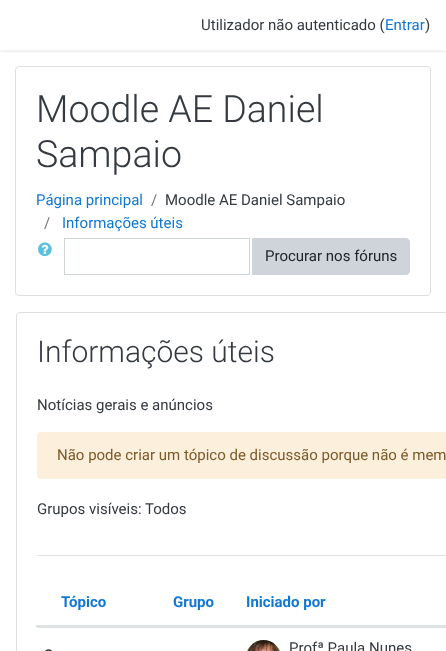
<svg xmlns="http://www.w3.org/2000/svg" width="446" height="651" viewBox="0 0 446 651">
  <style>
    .t1 { font: 15px Roboto; fill: #343a40; }
    .t2 { font: 15px Roboto; fill: #1177d1; }
    .t3 { font: 300 37.5px Roboto; fill: #343a40; }
    .t4 { font: 15px Roboto; fill: #6c757d; }
    .t5 { font: 15px Roboto; fill: #212529; }
    .t6 { font: 300 30px Roboto; fill: #343a40; }
    .t7 { font: 15px Roboto; fill: #7d5a29; }
    .t8 { font: bold 15px Roboto; fill: #1177d1; }
  </style>
  <defs>
    <clipPath id="clip1"><rect x="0" y="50" width="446" height="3"/></clipPath>
  </defs>
  <rect width="100%" height="100%" fill="#fff"/>
  <g clip-path="url(#clip1)">
    <rect x="0" y="2" width="446" height="50" fill="#00000014" filter="blur(2px)"/>
  </g>
  <text x="201" y="30" class="t1">Utilizador não autenticado (</text>
  <text x="385" y="30" class="t2">Entrar</text>
  <text x="425" y="30" class="t1">)</text>
  <rect x="15.5" y="66.5" width="415" height="229" rx="3.5" fill="none" stroke="#dfdfdf"/>
  <text x="36" y="122" class="t3">Moodle AE Daniel</text>
  <text x="36" y="167" class="t3">Sampaio</text>
  <text x="36" y="205" class="t2">Página principal</text>
  <text x="151" y="205" class="t4">/</text>
  <text x="165" y="205" class="t1">Moodle AE Daniel Sampaio</text>
  <text x="44" y="228" class="t4">/</text>
  <text x="62" y="228" class="t2">Informações úteis</text>
  <image x="38" y="242" width="14" height="15" href="images/1.png"/>
  <rect x="64.5" y="238.5" width="185" height="36" fill="none" stroke="#ced4da"/>
  <path d="M252.5 238.5H406C408 238.5 409.5 240 409.5 242V271C409.5 273 408 274.5 406 274.5H252.5Z" fill="#ced4da" stroke="#ced4da"/>
  <text x="265" y="261" class="t5">Procurar nos fóruns</text>
  <rect x="16.5" y="312.5" width="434" height="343" rx="3.5" fill="none" stroke="#dfdfdf"/>
  <text x="37" y="362" class="t6">Informações úteis</text>
  <text x="37" y="410" class="t1">Notícias gerais e anúncios</text>
  <rect x="37" y="432" width="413" height="47" rx="4" fill="#fcefdc"/>
  <text x="57" y="460" class="t7">Não pode criar um tópico de discussão porque não é mem</text>
  <text x="37" y="514" class="t1">Grupos visíveis: Todos</text>
  <rect x="37" y="555" width="409" height="1" fill="#dee2e6"/>
  <rect x="36" y="625" width="410" height="2" fill="#dee2e6"/>
  <text x="61" y="607" class="t8">Tópico</text>
  <text x="173" y="607" class="t8">Grupo</text>
  <text x="246" y="607" class="t8">Iniciado por</text>
  <rect x="37" y="627" width="409" height="1" fill="#dee2e6"/>
  <image x="45" y="649" width="7" height="2" href="images/2.png"/>
  <image x="247" y="640" width="33" height="11" href="images/3.png"/>
  <text x="289" y="653" class="t1">Profª Paula Nunes</text>
</svg>
